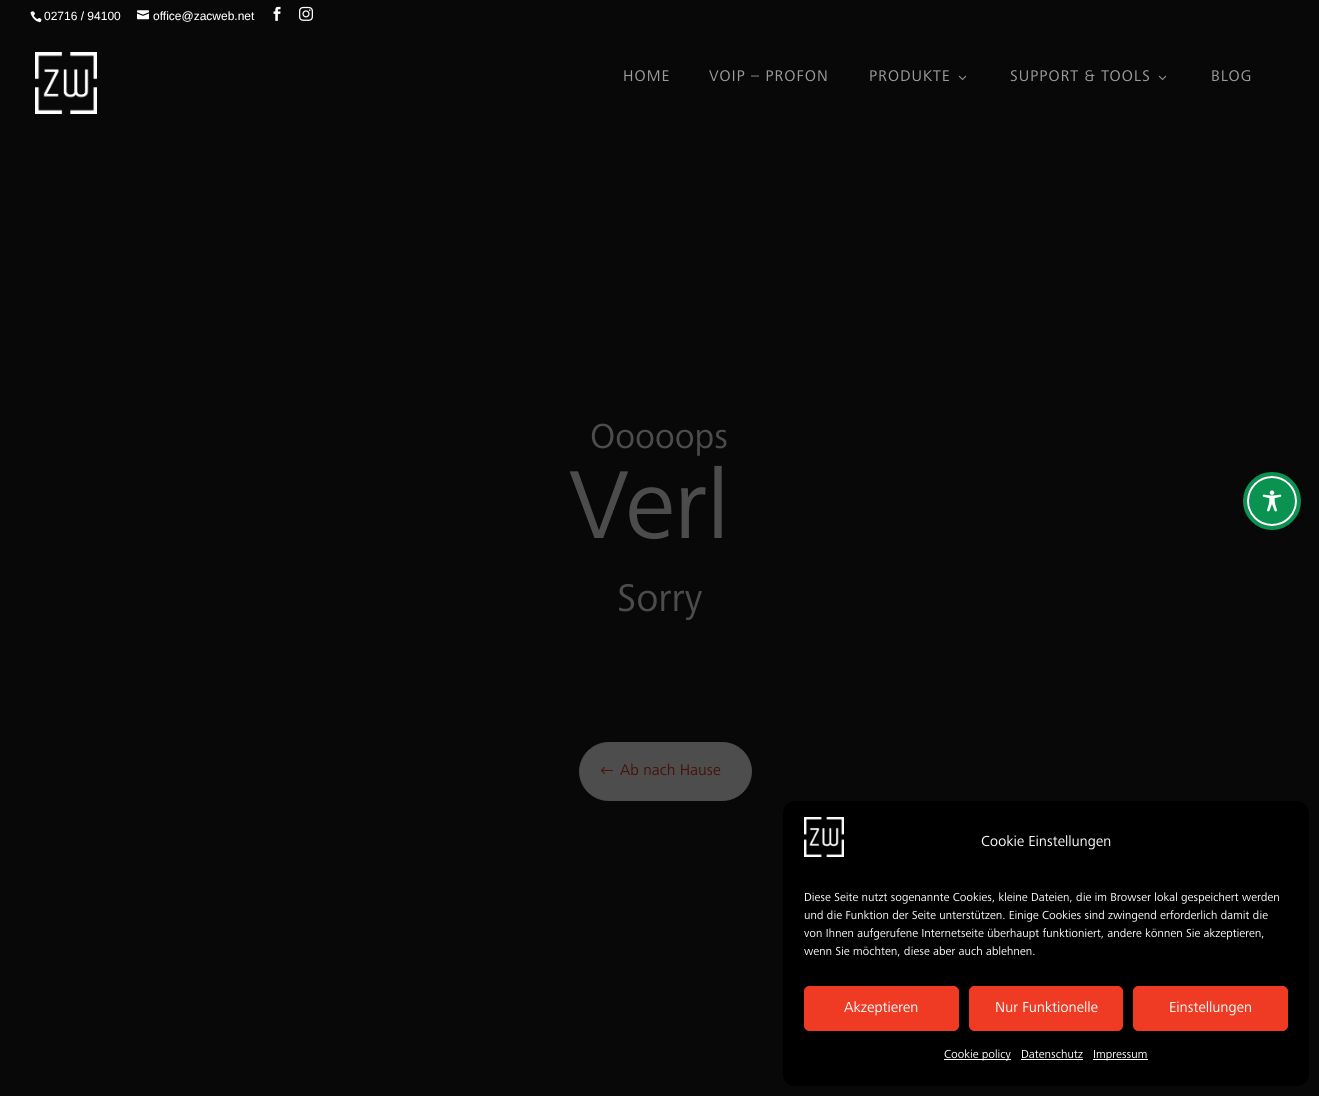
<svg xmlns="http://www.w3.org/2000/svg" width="1319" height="1096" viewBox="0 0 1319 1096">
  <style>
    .t1 { font: 12px Liberation Sans; fill: #fff; }
  </style>
  <rect width="100%" height="100%" fill="#080808"/>
  <image x="30" y="11" width="12" height="12" href="images/1.png"/>
  <text x="44" y="20" class="t1">02716 / 94100</text>
  <image x="137" y="10" width="12" height="10" href="images/2.png"/>
  <text x="153" y="20" class="t1">office@zacweb.net</text>
  <image x="273" y="6" width="8" height="15" href="images/3.png"/>
  <image x="299" y="6" width="14" height="15" href="images/4.png"/>
  <image x="35" y="52" width="62" height="62" href="images/5.png"/>
  <image x="624" y="70" width="45" height="12" href="images/6.png"/>
  <image x="709" y="70" width="118" height="12" href="images/7.png"/>
  <image x="870" y="70" width="79" height="12" href="images/8.png"/>
  <image x="958" y="75" width="9" height="5" href="images/9.png"/>
  <image x="1010" y="70" width="139" height="12" href="images/10.png"/>
  <image x="1158" y="75" width="9" height="5" href="images/9.png"/>
  <image x="1212" y="70" width="39" height="12" href="images/11.png"/>
  <image x="591" y="423" width="136" height="33" href="images/12.png"/>
  <image x="569" y="465" width="153" height="75" href="images/13.png"/>
  <image x="619" y="583" width="83" height="38" href="images/14.png"/>
  <rect x="579.5" y="742.5" width="172" height="58" rx="29" fill="#4d4d4d" stroke="#4d4d4d"/>
  <image x="601" y="767" width="12" height="7" href="images/15.png"/>
  <image x="620" y="763" width="101" height="13" href="images/16.png"/>
  <circle cx="1272" cy="501" r="27" fill="none" stroke="#099250" stroke-width="4"/>
  <circle cx="1272" cy="501" r="24" fill="#099250" stroke="#fff" stroke-width="2"/>
  <image x="1262" y="490" width="20" height="22" href="images/17.png"/>
  <rect x="783" y="801" width="526" height="285" rx="12" fill="#000"/>
  <image x="804" y="817" width="40" height="40" href="images/18.png"/>
  <image x="981" y="835" width="130" height="15" href="images/19.png"/>
  <image x="805" y="892" width="474" height="12" href="images/20.png"/>
  <image x="804" y="910" width="464" height="12" href="images/21.png"/>
  <image x="804" y="928" width="460" height="12" href="images/22.png"/>
  <image x="804" y="946" width="231" height="11" href="images/23.png"/>
  <rect x="804.5" y="986.5" width="154" height="44" rx="4.5" fill="#ef3b24" stroke="#ef3b24"/>
  <image x="844" y="1001" width="74" height="15" href="images/24.png"/>
  <rect x="969.5" y="986.5" width="153" height="44" rx="4.5" fill="#ef3b24" stroke="#ef3b24"/>
  <image x="996" y="1001" width="102" height="12" href="images/25.png"/>
  <rect x="1133.5" y="986.5" width="154" height="44" rx="4.5" fill="#ef3b24" stroke="#ef3b24"/>
  <image x="1170" y="1001" width="81" height="15" href="images/26.png"/>
  <rect x="944" y="1059" width="67" height="1" fill="#fff"/>
  <image x="944" y="1049" width="67" height="12" href="images/27.png"/>
  <image x="1022" y="1049" width="61" height="10" href="images/28.png"/>
  <rect x="1021" y="1059" width="62" height="1" fill="#fff"/>
  <rect x="1093" y="1059" width="55" height="1" fill="#fff"/>
  <image x="1094" y="1050" width="53" height="11" href="images/29.png"/>
</svg>
